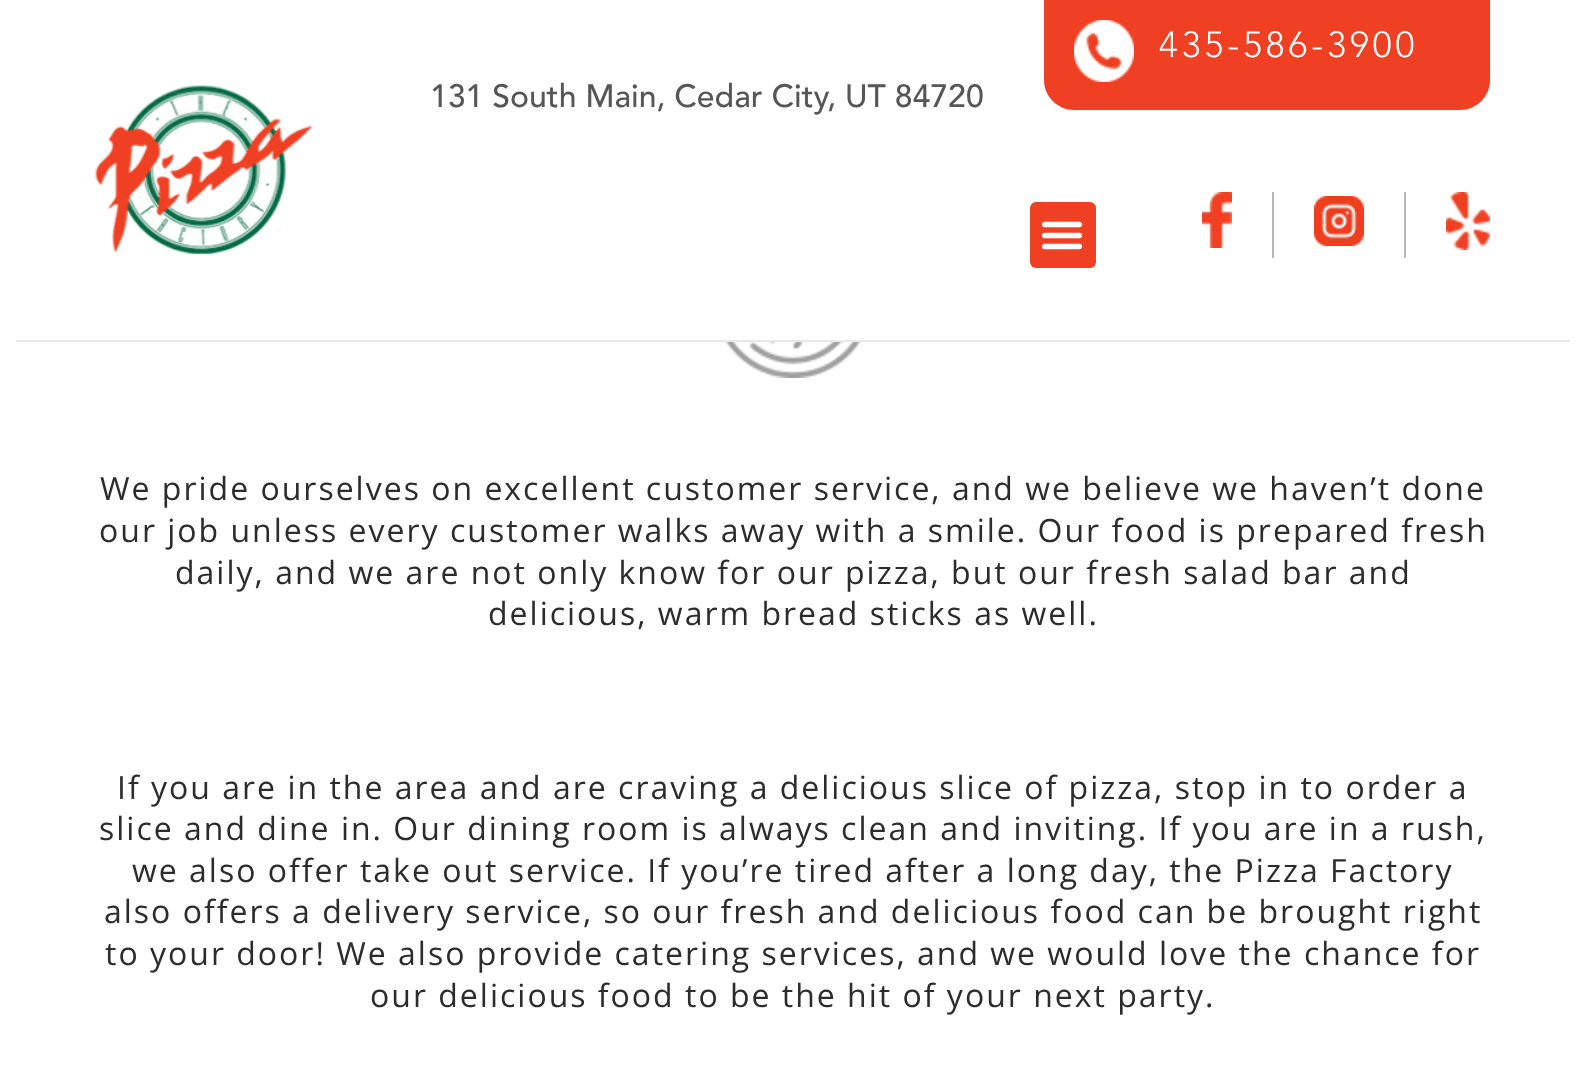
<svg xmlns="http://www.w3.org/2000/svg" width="1585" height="1068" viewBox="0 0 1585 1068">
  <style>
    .t1 { font: 300 36px Avenir; letter-spacing: 4px; fill: #fff; }
    .t2 { font: 500 32px Avenir; fill: #565656; }
    .t3 { font: 32px Open Sans; letter-spacing: 2px; fill: #2c2c2c; }
  </style>
  <rect width="100%" height="100%" fill="#fff"/>
  <rect x="16" y="340" width="1554" height="2" fill="#e8e8e8"/>
  <path d="M1044 0H1490V80C1490 96.5 1476.5 110 1460 110H1074C1057.5 110 1044 96.5 1044 80Z" fill="#ef4023"/>
  <image x="1074" y="20" width="60" height="62" href="images/1.png"/>
  <text x="1159" y="57" class="t1">435-586-3900</text>
  <text x="430" y="107" class="t2">131 South Main, Cedar City, UT 84720</text>
  <rect x="1030" y="202" width="66" height="66" rx="6" fill="#ef4023"/>
  <image x="1041" y="221" width="42" height="29" href="images/2.png"/>
  <rect x="1272" y="192" width="2" height="66" fill="#b8b8b8"/>
  <image x="1202" y="192" width="30" height="56" href="images/3.png"/>
  <rect x="1404" y="192" width="2" height="66" fill="#b8b8b8"/>
  <image x="1314" y="196" width="50" height="50" href="images/4.png"/>
  <image x="1446" y="192" width="44" height="58" href="images/5.png"/>
  <image x="95" y="85" width="218" height="170" href="images/6.png"/>
  <image x="725" y="342" width="136" height="36" href="images/7.png"/>
  <text x="100" y="500" class="t3">We pride ourselves on excellent customer service, and we believe we haven’t done</text>
  <text x="99" y="542" class="t3">our job unless every customer walks away with a smile. Our food is prepared fresh</text>
  <text x="175" y="584" class="t3">daily, and we are not only know for our pizza, but our fresh salad bar and</text>
  <text x="488" y="625" class="t3">delicious, warm bread sticks as well.</text>
  <text x="117" y="799" class="t3">If you are in the area and are craving a delicious slice of pizza, stop in to order a</text>
  <text x="99" y="840" class="t3">slice and dine in. Our dining room is always clean and inviting. If you are in a rush,</text>
  <text x="132" y="882" class="t3">we also offer take out service. If you’re tired after a long day, the Pizza Factory</text>
  <text x="104" y="923" class="t3">also offers a delivery service, so our fresh and delicious food can be brought right</text>
  <text x="105" y="965" class="t3">to your door! We also provide catering services, and we would love the chance for</text>
  <text x="370" y="1007" class="t3">our delicious food to be the hit of your next party.</text>
</svg>
